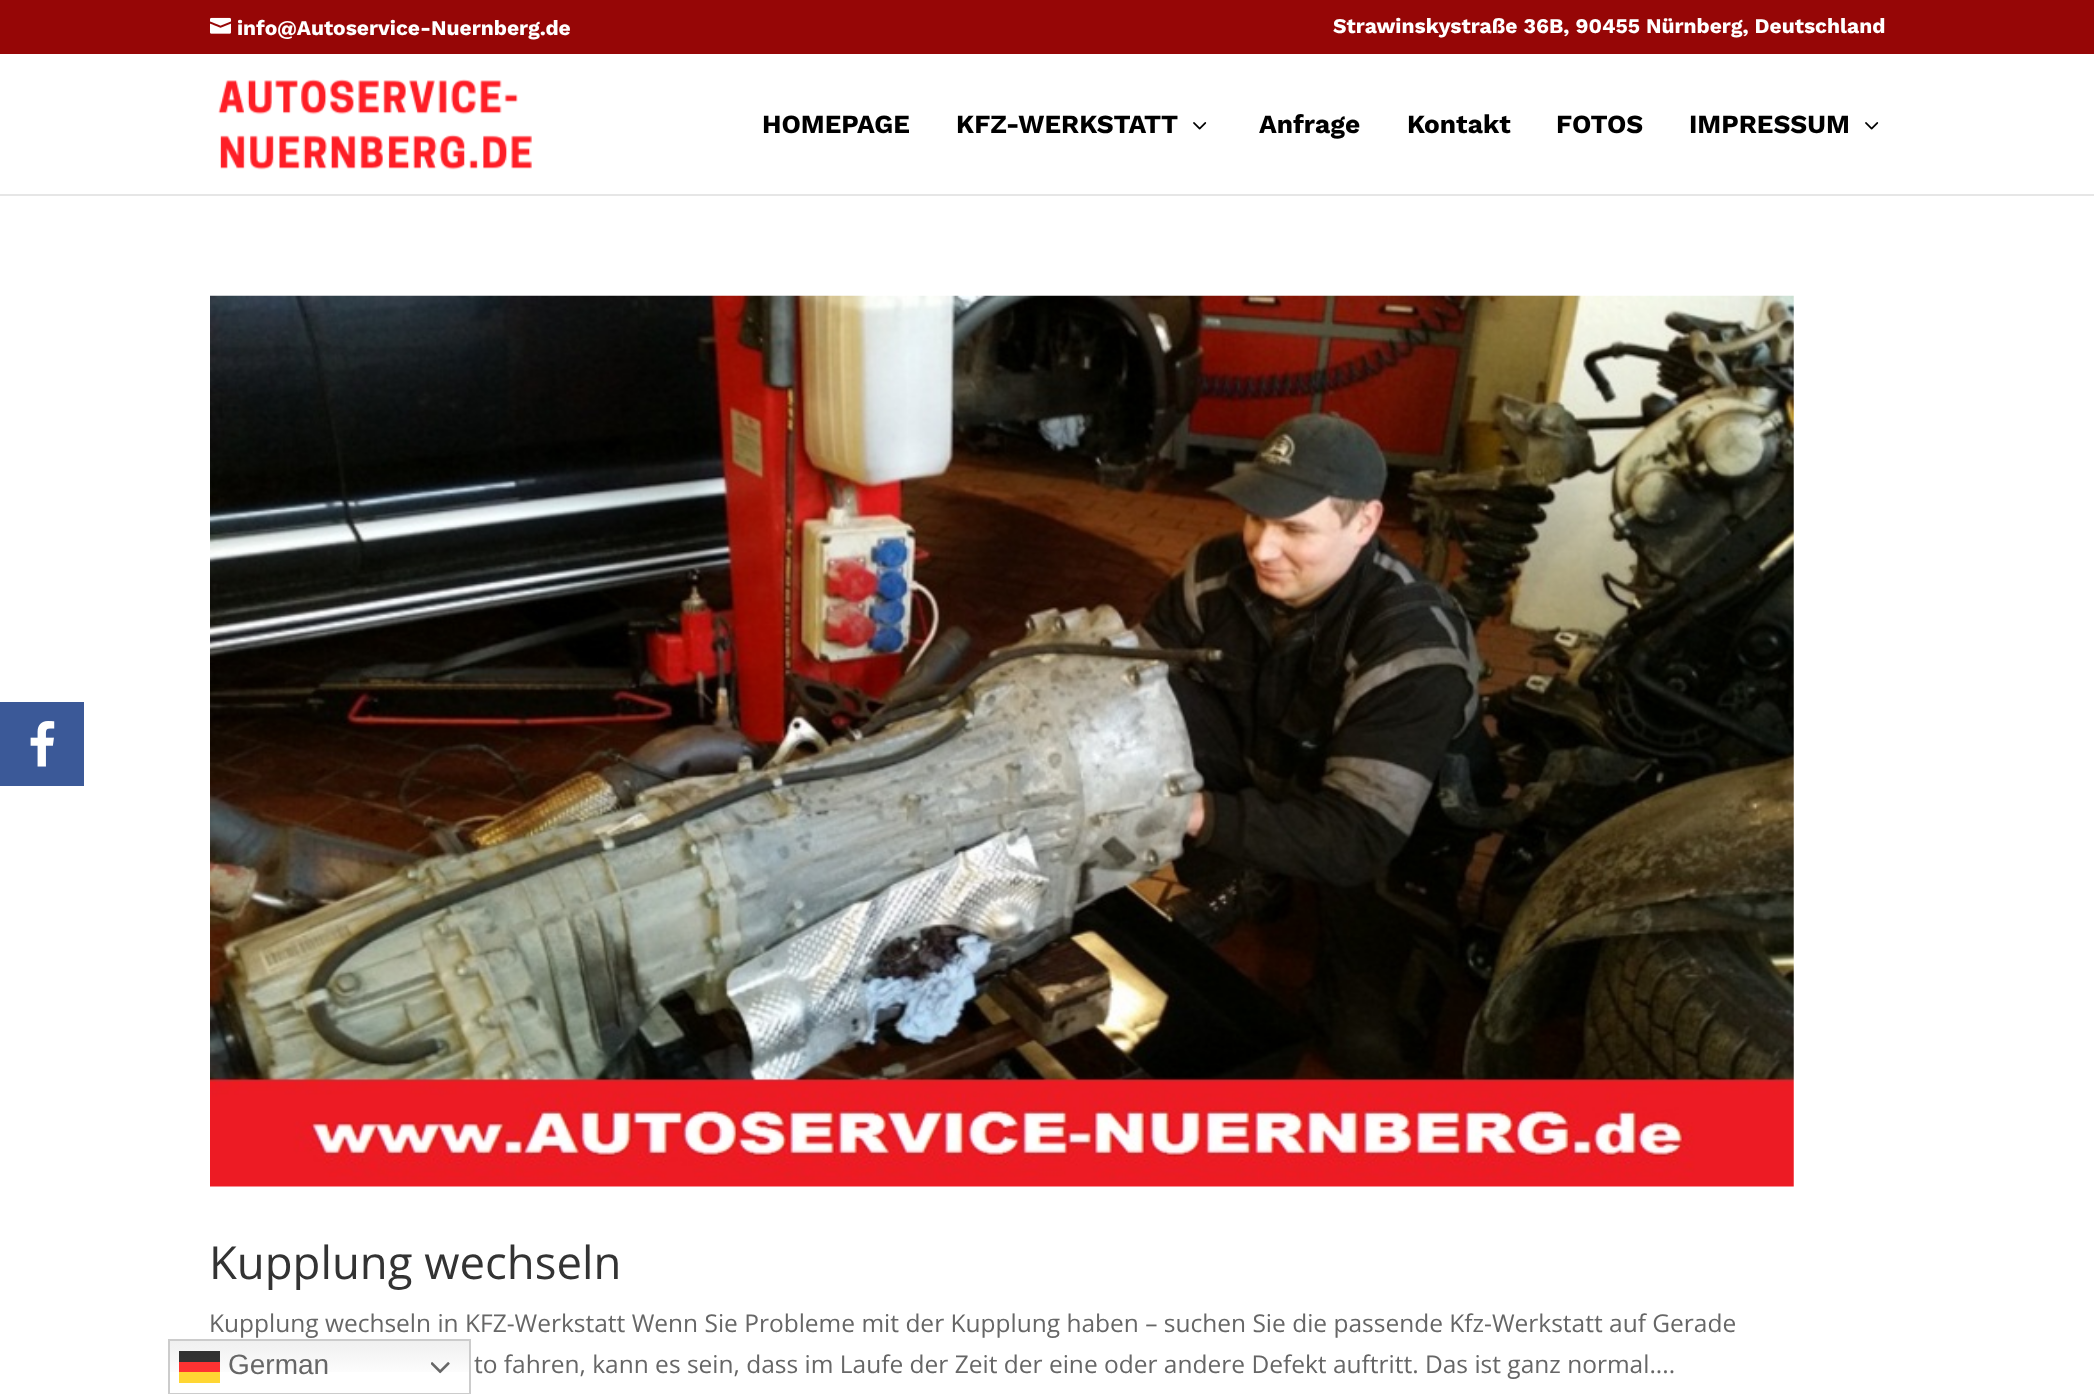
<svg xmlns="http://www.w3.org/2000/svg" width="2094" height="1394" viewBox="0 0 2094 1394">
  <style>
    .t1 { font: bold 21px Work Sans; fill: #fff; }
    .t2 { font: bold 26.25px Work Sans; fill: #000; }
    .t3 { font: 45.5px Open Sans; fill: #333; }
    .t4 { font: 24.5px Open Sans; fill: #666; }
    .t5 { font: 28px Liberation Sans; fill: #666; }
  </style>
  <defs>
    <linearGradient id="g1" gradientUnits="userSpaceOnUse" x1="319" y1="1339" x2="319" y2="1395"><stop offset="0" stop-color="#efefef"/><stop offset="0.7" stop-color="#fff"/></linearGradient>
  </defs>
  <rect width="100%" height="100%" fill="#fff"/>
  <rect x="0" y="702" width="84" height="84" fill="#3b5998"/>
  <image x="30" y="721" width="25" height="46" href="images/1.png"/>
  <rect x="0" y="0" width="2094" height="54" fill="#960606"/>
  <image x="210" y="17" width="21" height="17" href="images/2.png"/>
  <text x="237" y="35" class="t1">info@Autoservice-Nuernberg.de</text>
  <text x="1333" y="33" class="t1">Strawinskystraße 36B, 90455 Nürnberg, Deutschland</text>
  <path d="M0 194V196H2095V56V194Z" fill="#e6e6e6"/>
  <image x="218" y="79" width="314" height="91" href="images/3.png"/>
  <text x="762" y="133" class="t2">HOMEPAGE</text>
  <text x="956" y="133" class="t2">KFZ-WERKSTATT</text>
  <image x="1193" y="122" width="14" height="8" href="images/4.png"/>
  <text x="1259" y="133" class="t2">Anfrage</text>
  <text x="1407" y="133" class="t2">Kontakt</text>
  <text x="1556" y="133" class="t2">FOTOS</text>
  <text x="1689" y="133" class="t2">IMPRESSUM</text>
  <image x="1865" y="122" width="14" height="8" href="images/4.png"/>
  <image x="210" y="295" width="1584" height="892" href="images/5.png"/>
  <text x="209" y="1279" class="t3">Kupplung wechseln</text>
  <text x="209" y="1332" class="t4">Kupplung wechseln in KFZ-Werkstatt Wenn Sie Probleme mit der Kupplung haben – suchen Sie die passende Kfz-Werkstatt auf Gerade</text>
  <text x="474" y="1373" class="t4">to fahren, kann es sein, dass im Laufe der Zeit der eine oder andere Defekt auftritt. Das ist ganz normal....</text>
  <rect x="170" y="1341" width="299" height="31" fill="url(#g1)"/>
  <rect x="169" y="1340" width="301" height="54" fill="none" stroke="#ccc" stroke-width="2"/>
  <rect x="179" y="1351" width="41" height="11" fill="#000000cc"/>
  <text x="228" y="1374" class="t5">German</text>
  <rect x="179" y="1362" width="41" height="10" fill="#ff0000cc"/>
  <image x="431" y="1362" width="19" height="12" href="images/6.png"/>
  <rect x="179" y="1372" width="41" height="11" fill="#ffd633"/>
</svg>
